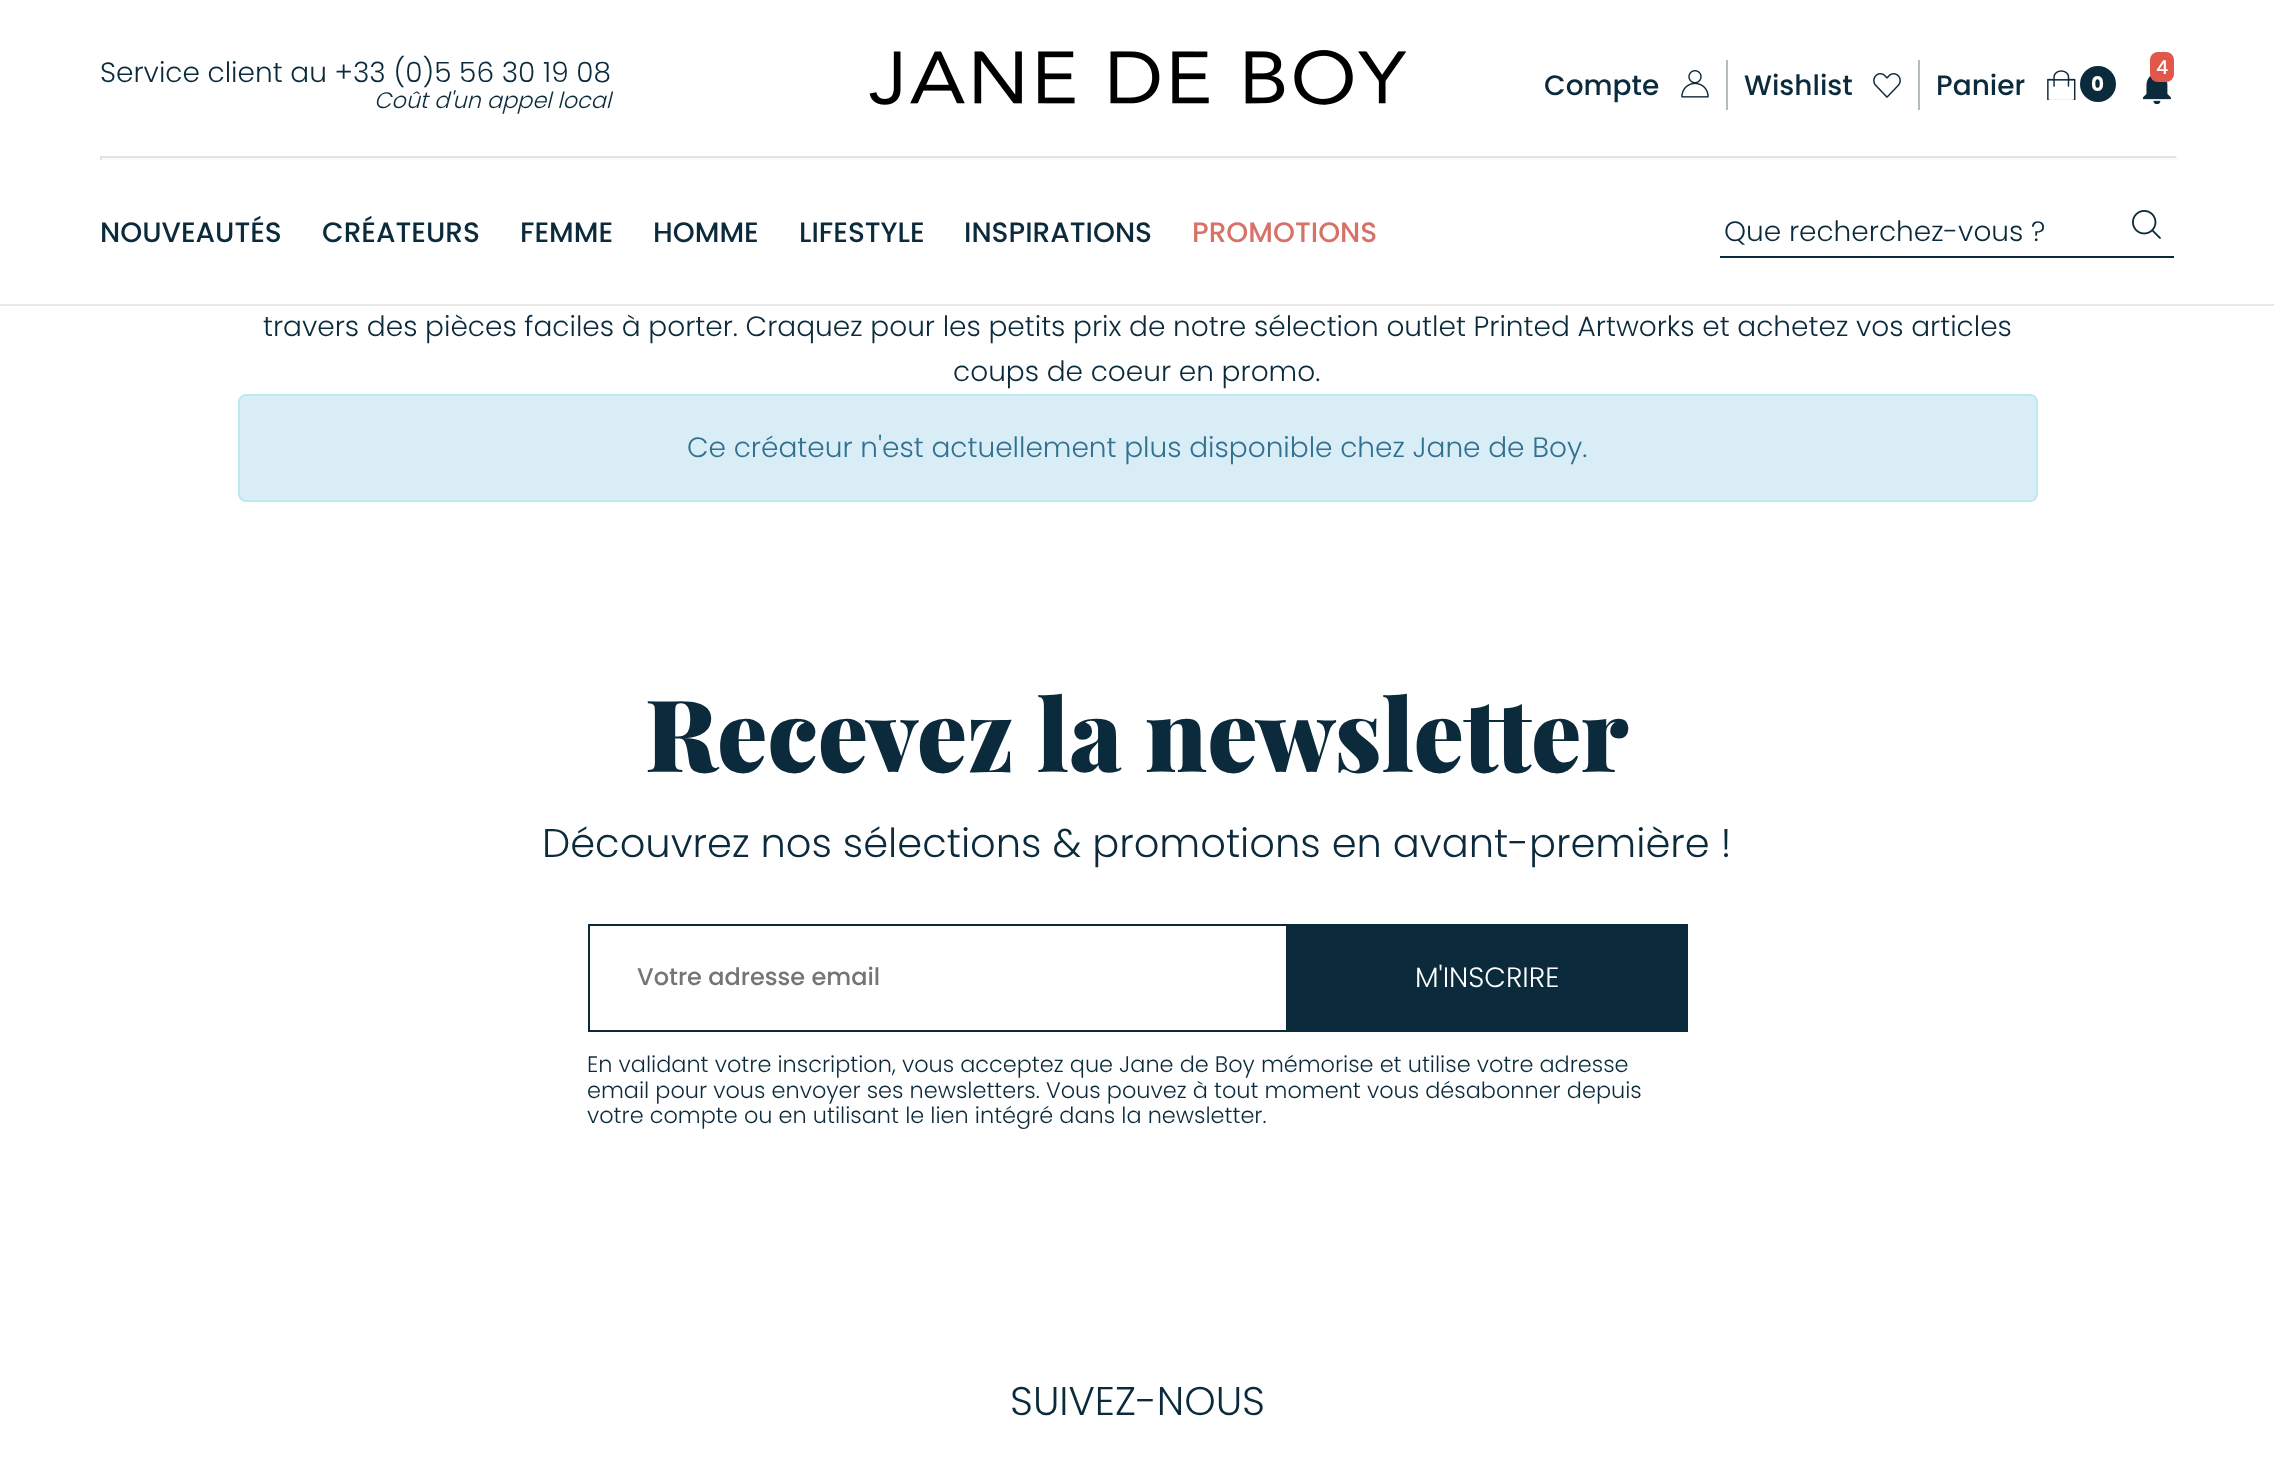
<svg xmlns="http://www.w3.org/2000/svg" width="2274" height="1462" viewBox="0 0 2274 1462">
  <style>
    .t1 { font: 300 28px Poppins; fill: #0b2a3b; }
    .t2 { font: italic 300 22.4px Poppins; fill: #0b2a3b; }
    .t3 { font: 500 19px Poppins; fill: #fff; }
    .t4 { font: 500 28px Poppins; fill: #0b2a3b; }
    .t5 { font: bold 20px Poppins; fill: #fff; }
    .t6 { font: 500 28px Poppins; fill: #d67268; }
    .t7 { font: 300 28px Poppins; fill: #31708f; }
    .t8 { font: 900 100px Playfair Display; fill: #0b2a3b; }
    .t9 { font: 300 40px Poppins; fill: #0b2a3b; }
    .t10 { font: 500 24px Poppins; fill: #757575; }
    .t11 { font: 300 28px Poppins; fill: #fff; }
    .t12 { font: 300 22.4px Poppins; fill: #0b2a3b; }
  </style>
  <rect width="100%" height="100%" fill="#fff"/>
  <rect x="0" y="304" width="2274" height="2" fill="#e8e8e8"/>
  <text x="100" y="82" class="t1">Service client au +33 (0)5 56 30 19 08</text>
  <text x="374" y="108" class="t2">Coût d'un appel local</text>
  <image x="869" y="50" width="538" height="55" href="images/1.png"/>
  <rect x="1726" y="60" width="2" height="50" fill="#b2bcc1"/>
  <rect x="1918" y="60" width="2" height="50" fill="#b2bcc1"/>
  <image x="2142" y="75" width="29" height="29" href="images/2.png"/>
  <rect x="2150" y="52" width="24" height="30" rx="8" fill="#e2574c"/>
  <text x="2156" y="74" class="t3">4</text>
  <text x="1544" y="95" class="t4">Compte</text>
  <image x="1681" y="70" width="28" height="28" href="images/3.png"/>
  <text x="1744" y="95" class="t4">Wishlist</text>
  <image x="1873" y="73" width="28" height="25" href="images/4.png"/>
  <text x="1936" y="95" class="t4">Panier</text>
  <image x="2047" y="70" width="29" height="30" href="images/5.png"/>
  <circle cx="2098" cy="84" r="18" fill="#0b2a3b"/>
  <text x="2091" y="91" class="t5">0</text>
  <rect x="100" y="156" width="2078" height="2" fill="#e2e2e2"/>
  <rect x="2176" y="156" width="2" height="4" fill="#fafafa"/>
  <rect x="100" y="158" width="2078" height="2" fill="#fafafa"/>
  <rect x="100" y="156" width="2" height="4" fill="#e2e2e2"/>
  <text x="100" y="242" class="t4">NOUVEAUTÉS</text>
  <text x="322" y="242" class="t4">CRÉATEURS</text>
  <text x="520" y="242" class="t4">FEMME</text>
  <text x="653" y="242" class="t4">HOMME</text>
  <text x="799" y="242" class="t4">LIFESTYLE</text>
  <text x="964" y="242" class="t4">INSPIRATIONS</text>
  <text x="1192" y="242" class="t6">PROMOTIONS</text>
  <rect x="1720" y="256" width="454" height="2" fill="#0b2a3b"/>
  <text x="1724" y="241" class="t1">Que recherchez-vous ?</text>
  <image x="2132" y="210" width="29" height="29" href="images/6.png"/>
  <text x="263" y="336" class="t1">travers des pièces faciles à porter. Craquez pour les petits prix de notre sélection outlet Printed Artworks et achetez vos articles</text>
  <text x="953" y="381" class="t1">coups de coeur en promo.</text>
  <rect x="239" y="395" width="1798" height="106" rx="7" fill="#d9edf7" stroke="#bce8f1" stroke-width="2"/>
  <text x="687" y="457" class="t7">Ce créateur n'est actuellement plus disponible chez Jane de Boy.</text>
  <text x="645" y="772" class="t8">Recevez la newsletter</text>
  <text x="542" y="857" class="t9">Découvrez nos sélections &amp; promotions en avant-première !</text>
  <rect x="589" y="925" width="698" height="106" fill="none" stroke="#0b2a3b" stroke-width="2"/>
  <text x="637" y="985" class="t10">Votre adresse email</text>
  <rect x="1288" y="924" width="400" height="108" fill="#0b2a3b"/>
  <text x="1415" y="987" class="t11">M'INSCRIRE</text>
  <text x="587" y="1072" class="t12">En validant votre inscription, vous acceptez que Jane de Boy mémorise et utilise votre adresse</text>
  <text x="587" y="1098" class="t12">email pour vous envoyer ses newsletters. Vous pouvez à tout moment vous désabonner depuis</text>
  <text x="587" y="1123" class="t12">votre compte ou en utilisant le lien intégré dans la newsletter.</text>
  <text x="1010" y="1415" class="t9">SUIVEZ-NOUS</text>
</svg>
